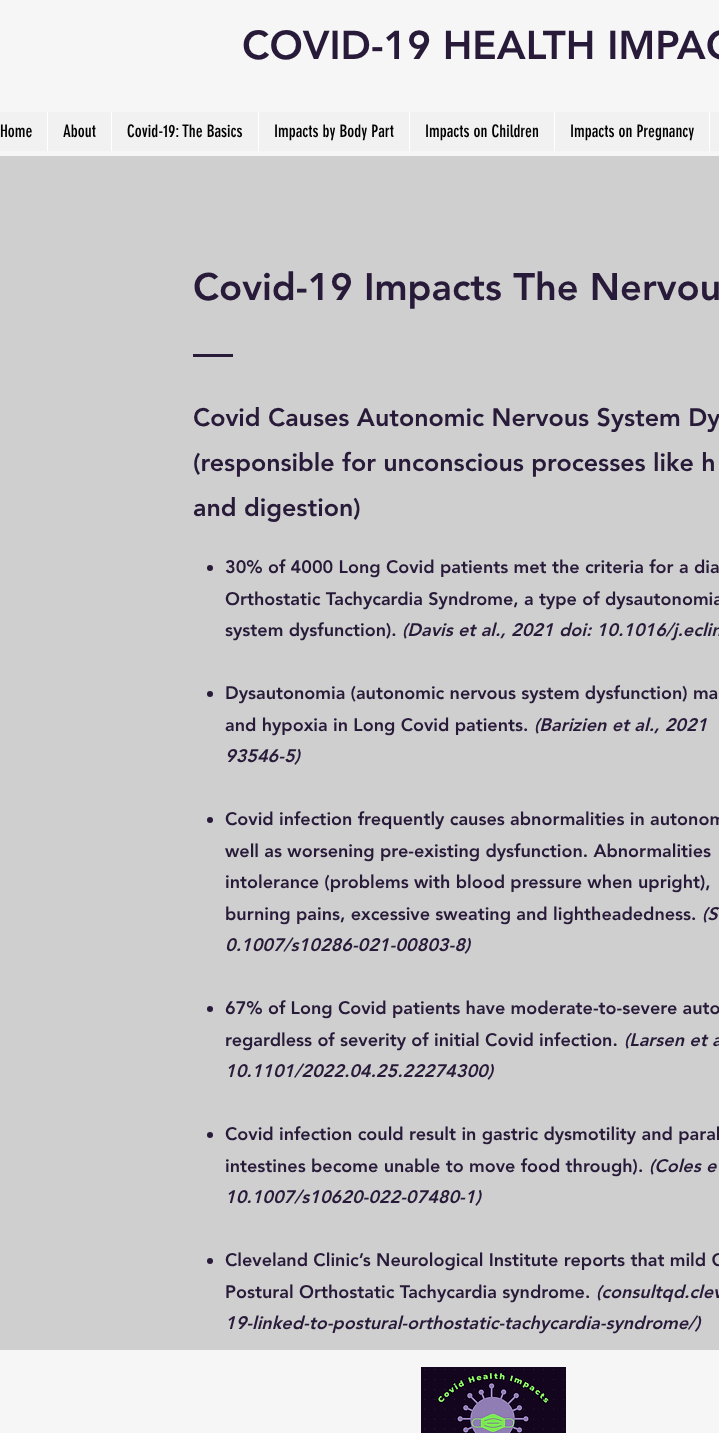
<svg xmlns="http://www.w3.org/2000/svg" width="719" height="1433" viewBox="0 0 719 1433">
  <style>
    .t1 { font: 900 40px 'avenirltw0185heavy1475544'; fill: #281a39; }
    .t2 { font: 17px 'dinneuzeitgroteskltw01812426'; fill: #000; }
    .t3 { font: 900 38px 'avenirltw0185heavy1475544'; fill: #281a39; }
    .t4 { font: 900 25px 'avenirltw0185heavy1475544'; fill: #281a39; }
    .t5 { font: 900 18px 'avenirltw0185heavy1475544'; fill: #281a39; }
    .t6 { font: italic 900 18px 'avenirltw0185heavy1475544'; fill: #281a39; }
  </style>
  <rect width="100%" height="100%" fill="#f6f6f6"/>
  <text x="242" y="59" class="t1">COVID-19 HEALTH IMPAC</text>
  <rect x="0" y="112" width="719" height="39" fill="#f1f1f1"/>
  <text x="0" y="137" class="t2">Home</text>
  <rect x="47" y="112" width="1" height="39" fill="#fff"/>
  <text x="63" y="137" class="t2">About</text>
  <rect x="111" y="112" width="1" height="39" fill="#fff"/>
  <text x="127" y="137" class="t2">Covid-19: The Basics</text>
  <rect x="258" y="112" width="1" height="39" fill="#fff"/>
  <text x="274" y="137" class="t2">Impacts by Body Part</text>
  <rect x="409" y="112" width="1" height="39" fill="#fff"/>
  <text x="425" y="137" class="t2">Impacts on Children</text>
  <rect x="554" y="112" width="1" height="39" fill="#fff"/>
  <text x="570" y="137" class="t2">Impacts on Pregnancy</text>
  <rect x="709" y="112" width="1" height="39" fill="#fff"/>
  <rect x="0" y="156" width="719" height="1194" fill="#cfcfcf"/>
  <text x="193" y="300" class="t3">Covid-19 Impacts The Nervou</text>
  <rect x="193" y="354" width="40" height="3" fill="#281a39"/>
  <text x="193" y="426" class="t4">Covid Causes Autonomic Nervous System Dy</text>
  <text x="193" y="471" class="t4">(responsible for unconscious processes like h</text>
  <text x="193" y="516" class="t4">and digestion)</text>
  <circle cx="210" cy="568" r="3" fill="#281a39"/>
  <text x="225" y="573" class="t5">30% of 4000 Long Covid patients met the criteria for a dia</text>
  <text x="225" y="605" class="t5">Orthostatic Tachycardia Syndrome, a type of dysautonomia</text>
  <text x="225" y="636" class="t5">system dysfunction).</text>
  <text x="402" y="636" class="t6">(Davis et al., 2021 doi: 10.1016/j.eclin</text>
  <circle cx="210" cy="694" r="3" fill="#281a39"/>
  <text x="225" y="699" class="t5">Dysautonomia (autonomic nervous system dysfunction) ma</text>
  <text x="225" y="731" class="t5">and hypoxia in Long Covid patients.</text>
  <text x="534" y="731" class="t6">(Barizien et al., 2021</text>
  <text x="225" y="762" class="t6">93546-5)</text>
  <circle cx="210" cy="820" r="3" fill="#281a39"/>
  <text x="225" y="825" class="t5">Covid infection frequently causes abnormalities in autonom</text>
  <text x="225" y="857" class="t5">well as worsening pre-existing dysfunction. Abnormalities</text>
  <text x="225" y="888" class="t5">intolerance (problems with blood pressure when upright),</text>
  <text x="225" y="920" class="t5">burning pains, excessive sweating and lightheadedness.</text>
  <text x="702" y="920" class="t6">(S</text>
  <text x="225" y="951" class="t6">0.1007/s10286-021-00803-8)</text>
  <circle cx="210" cy="1009" r="3" fill="#281a39"/>
  <text x="225" y="1014" class="t5">67% of Long Covid patients have moderate-to-severe auto</text>
  <text x="225" y="1046" class="t5">regardless of severity of initial Covid infection.</text>
  <text x="624" y="1046" class="t6">(Larsen et a</text>
  <text x="225" y="1077" class="t6">10.1101/2022.04.25.22274300)</text>
  <circle cx="210" cy="1135" r="3" fill="#281a39"/>
  <text x="225" y="1140" class="t5">Covid infection could result in gastric dysmotility and paral</text>
  <text x="225" y="1172" class="t5">intestines become unable to move food through).</text>
  <text x="649" y="1172" class="t6">(Coles e</text>
  <text x="225" y="1203" class="t6">10.1007/s10620-022-07480-1)</text>
  <circle cx="210" cy="1261" r="3" fill="#281a39"/>
  <text x="225" y="1266" class="t5">Cleveland Clinic’s Neurological Institute reports that mild C</text>
  <text x="225" y="1298" class="t5">Postural Orthostatic Tachycardia syndrome.</text>
  <text x="596" y="1298" class="t6">(consultqd.clev</text>
  <text x="225" y="1329" class="t6">19-linked-to-postural-orthostatic-tachycardia-syndrome/)</text>
  <image x="421" y="1367" width="145" height="66" href="images/1.png"/>
</svg>
